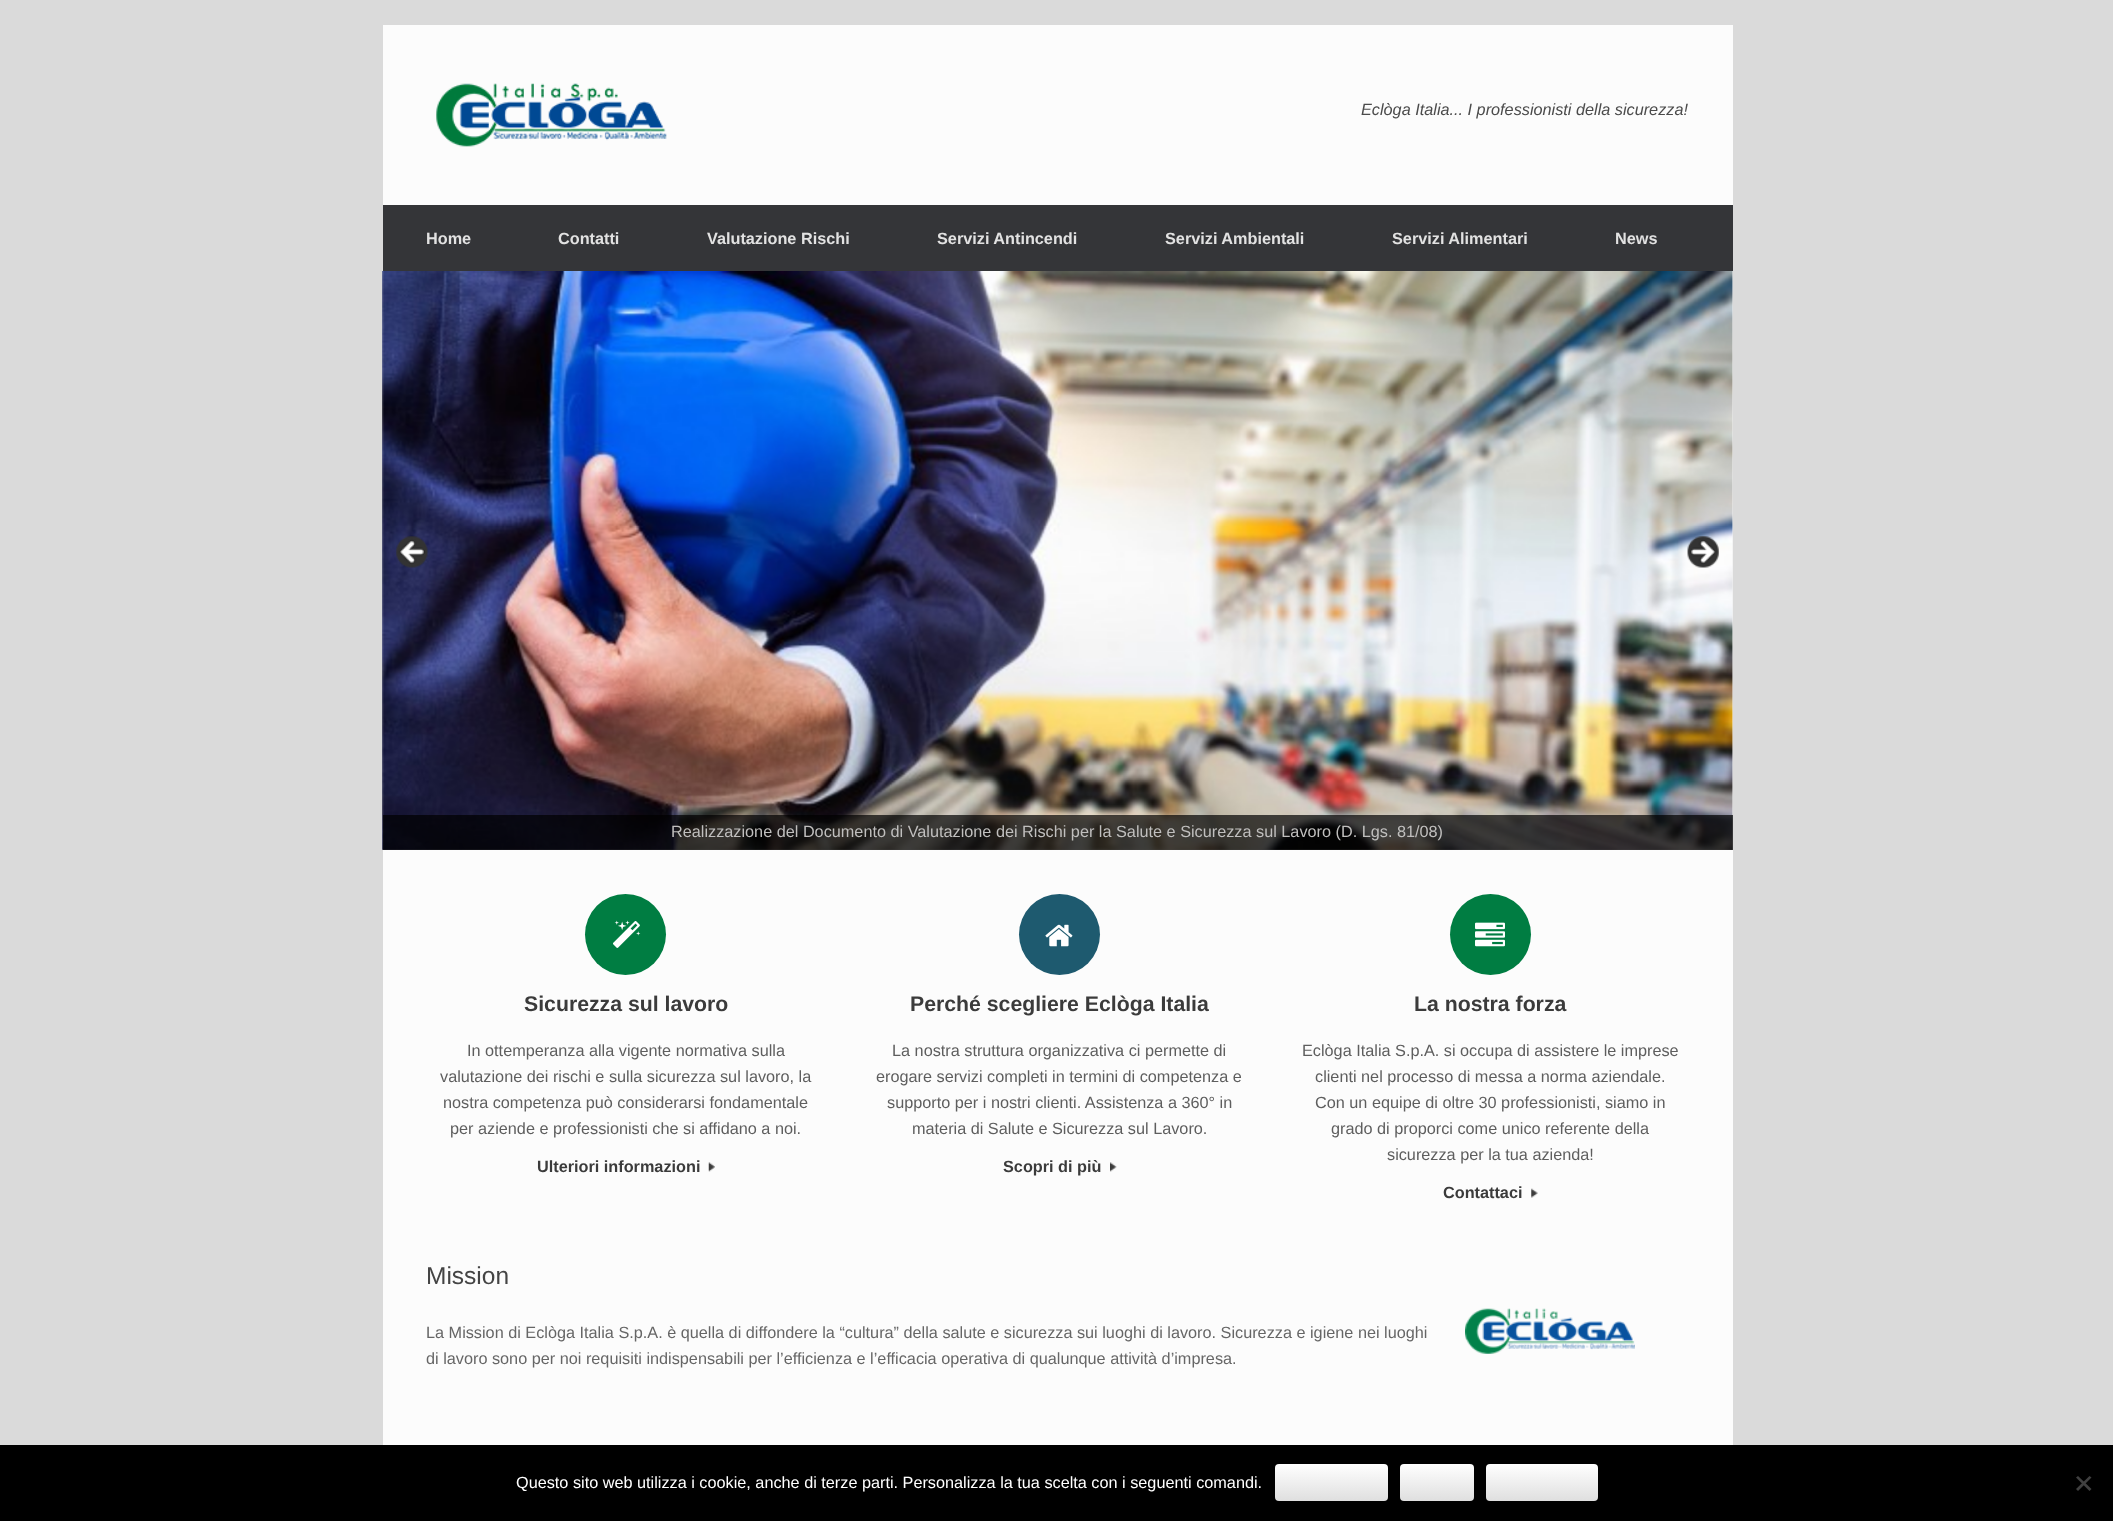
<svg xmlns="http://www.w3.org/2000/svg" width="2113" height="1521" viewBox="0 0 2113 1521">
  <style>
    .t1 { font: italic 16.25px Liberation Sans; fill: #4b4b4b; }
    .t2 { font: bold 16.25px Liberation Sans; fill: #e2e2e2; }
    .t3 { font: 16.25px Liberation Sans; fill: #c0bfbe; }
    .t4 { font: bold 21.25px Liberation Sans; fill: #3b3b3b; }
    .t5 { font: 16.25px Liberation Sans; fill: #5e5e5e; }
    .t6 { font: bold 16.25px Liberation Sans; fill: #3b3b3b; }
    .t7 { font: 24.5px Liberation Sans; fill: #444; }
    .t8 { font: 16.25px Liberation Sans; fill: #666; }
    .t9 { font: 16.25px Liberation Sans; fill: #fff; }
  </style>
  <defs>
    <linearGradient id="g1" gradientUnits="userSpaceOnUse" x1="1275" y1="1501" x2="1275" y2="1464"><stop offset="0" stop-color="#dfdfdf"/><stop offset="1" stop-color="#fff"/></linearGradient>
    <linearGradient id="g2" gradientUnits="userSpaceOnUse" x1="1400" y1="1501" x2="1400" y2="1464"><stop offset="0" stop-color="#dfdfdf"/><stop offset="1" stop-color="#fff"/></linearGradient>
    <linearGradient id="g3" gradientUnits="userSpaceOnUse" x1="1486" y1="1501" x2="1486" y2="1464"><stop offset="0" stop-color="#dfdfdf"/><stop offset="1" stop-color="#fff"/></linearGradient>
  </defs>
  <rect width="100%" height="100%" fill="#dadada"/>
  <rect x="383" y="25" width="1350" height="180" fill="#fcfcfc"/>
  <image x="436" y="83" width="231" height="64" href="images/1.png"/>
  <text x="1361" y="115" class="t1">Eclòga Italia... I professionisti della sicurezza!</text>
  <rect x="383" y="205" width="1350" height="66" fill="#343538"/>
  <text x="426" y="244" class="t2">Home</text>
  <text x="558" y="244" class="t2">Contatti</text>
  <text x="707" y="244" class="t2">Valutazione Rischi</text>
  <text x="937" y="244" class="t2">Servizi Antincendi</text>
  <text x="1165" y="244" class="t2">Servizi Ambientali</text>
  <text x="1392" y="244" class="t2">Servizi Alimentari</text>
  <text x="1615" y="244" class="t2">News</text>
  <rect x="383" y="271" width="1350" height="579" fill="#eee"/>
  <image x="382" y="271" width="1351" height="579" href="images/4.png"/>
  <image x="396" y="536" width="32" height="32" href="images/2.png"/>
  <image x="1687" y="536" width="32" height="32" href="images/3.png"/>
  <rect x="383" y="815" width="1350" height="35" fill="#000000b3"/>
  <text x="671" y="837" class="t3">Realizzazione del Documento di Valutazione dei Rischi per la Salute e Sicurezza sul Lavoro (D. Lgs. 81/08)</text>
  <rect x="383" y="850" width="1350" height="595" fill="#fcfcfc"/>
  <circle cx="625.5" cy="934.5" r="40.5" fill="#007d42"/>
  <image x="613" y="920" width="28" height="28" href="images/5.png"/>
  <text x="524" y="1011" class="t4">Sicurezza sul lavoro</text>
  <text x="467" y="1056" class="t5">In ottemperanza alla vigente normativa sulla</text>
  <text x="440" y="1082" class="t5">valutazione dei rischi e sulla sicurezza sul lavoro, la</text>
  <text x="443" y="1108" class="t5">nostra competenza può considerarsi fondamentale</text>
  <text x="450" y="1134" class="t5">per aziende e professionisti che si affidano a noi.</text>
  <text x="537" y="1172" class="t6">Ulteriori informazioni</text>
  <image x="708" y="1162" width="7" height="10" href="images/6.png"/>
  <circle cx="1059.5" cy="934.5" r="40.5" fill="#1e5a6f"/>
  <image x="1045" y="924" width="28" height="23" href="images/7.png"/>
  <text x="910" y="1011" class="t4">Perché scegliere Eclòga Italia</text>
  <text x="892" y="1056" class="t5">La nostra struttura organizzativa ci permette di</text>
  <text x="876" y="1082" class="t5">erogare servizi completi in termini di competenza e</text>
  <text x="887" y="1108" class="t5">supporto per i nostri clienti. Assistenza a 360° in</text>
  <text x="912" y="1134" class="t5">materia di Salute e Sicurezza sul Lavoro.</text>
  <text x="1003" y="1172" class="t6">Scopri di più</text>
  <image x="1110" y="1162" width="7" height="10" href="images/8.png"/>
  <circle cx="1490.5" cy="934.5" r="40.5" fill="#007d42"/>
  <image x="1475" y="922" width="30" height="25" href="images/9.png"/>
  <text x="1414" y="1011" class="t4">La nostra forza</text>
  <text x="1302" y="1056" class="t5">Eclòga Italia S.p.A. si occupa di assistere le imprese</text>
  <text x="1315" y="1082" class="t5">clienti nel processo di messa a norma aziendale.</text>
  <text x="1315" y="1108" class="t5">Con un equipe di oltre 30 professionisti, siamo in</text>
  <text x="1331" y="1134" class="t5">grado di proporci come unico referente della</text>
  <text x="1387" y="1160" class="t5">sicurezza per la tua azienda!</text>
  <text x="1443" y="1198" class="t6">Contattaci</text>
  <image x="1531" y="1188" width="7" height="10" href="images/10.png"/>
  <text x="426" y="1284" class="t7">Mission</text>
  <text x="426" y="1338" class="t8">La Mission di Eclòga Italia S.p.A. è quella di diffondere la “cultura” della salute e sicurezza sui luoghi di lavoro. Sicurezza e igiene nei luoghi</text>
  <text x="426" y="1364" class="t8">di lavoro sono per noi requisiti indispensabili per l’efficienza e l’efficacia operativa di qualunque attività d’impresa.</text>
  <image x="1465" y="1308" width="170" height="46" href="images/11.png"/>
  <rect x="0" y="1445" width="2113" height="76" fill="#000"/>
  <text x="516" y="1488" class="t9">Questo sito web utilizza i cookie, anche di terze parti. Personalizza la tua scelta con i seguenti comandi.</text>
  <rect x="1275" y="1464" width="113" height="37" rx="4" fill="url(#g1)"/>
  <rect x="1400" y="1464" width="74" height="37" rx="4" fill="url(#g2)"/>
  <rect x="1486" y="1464" width="112" height="37" rx="4" fill="url(#g3)"/>
  <path d="M2089.5 1476L2091.5 1477.5L2078 1491L2076 1489Z" fill="#404040"/>
  <path d="M2076 1477.5L2078 1476L2091.5 1489L2089.5 1491Z" fill="#404040"/>
</svg>
